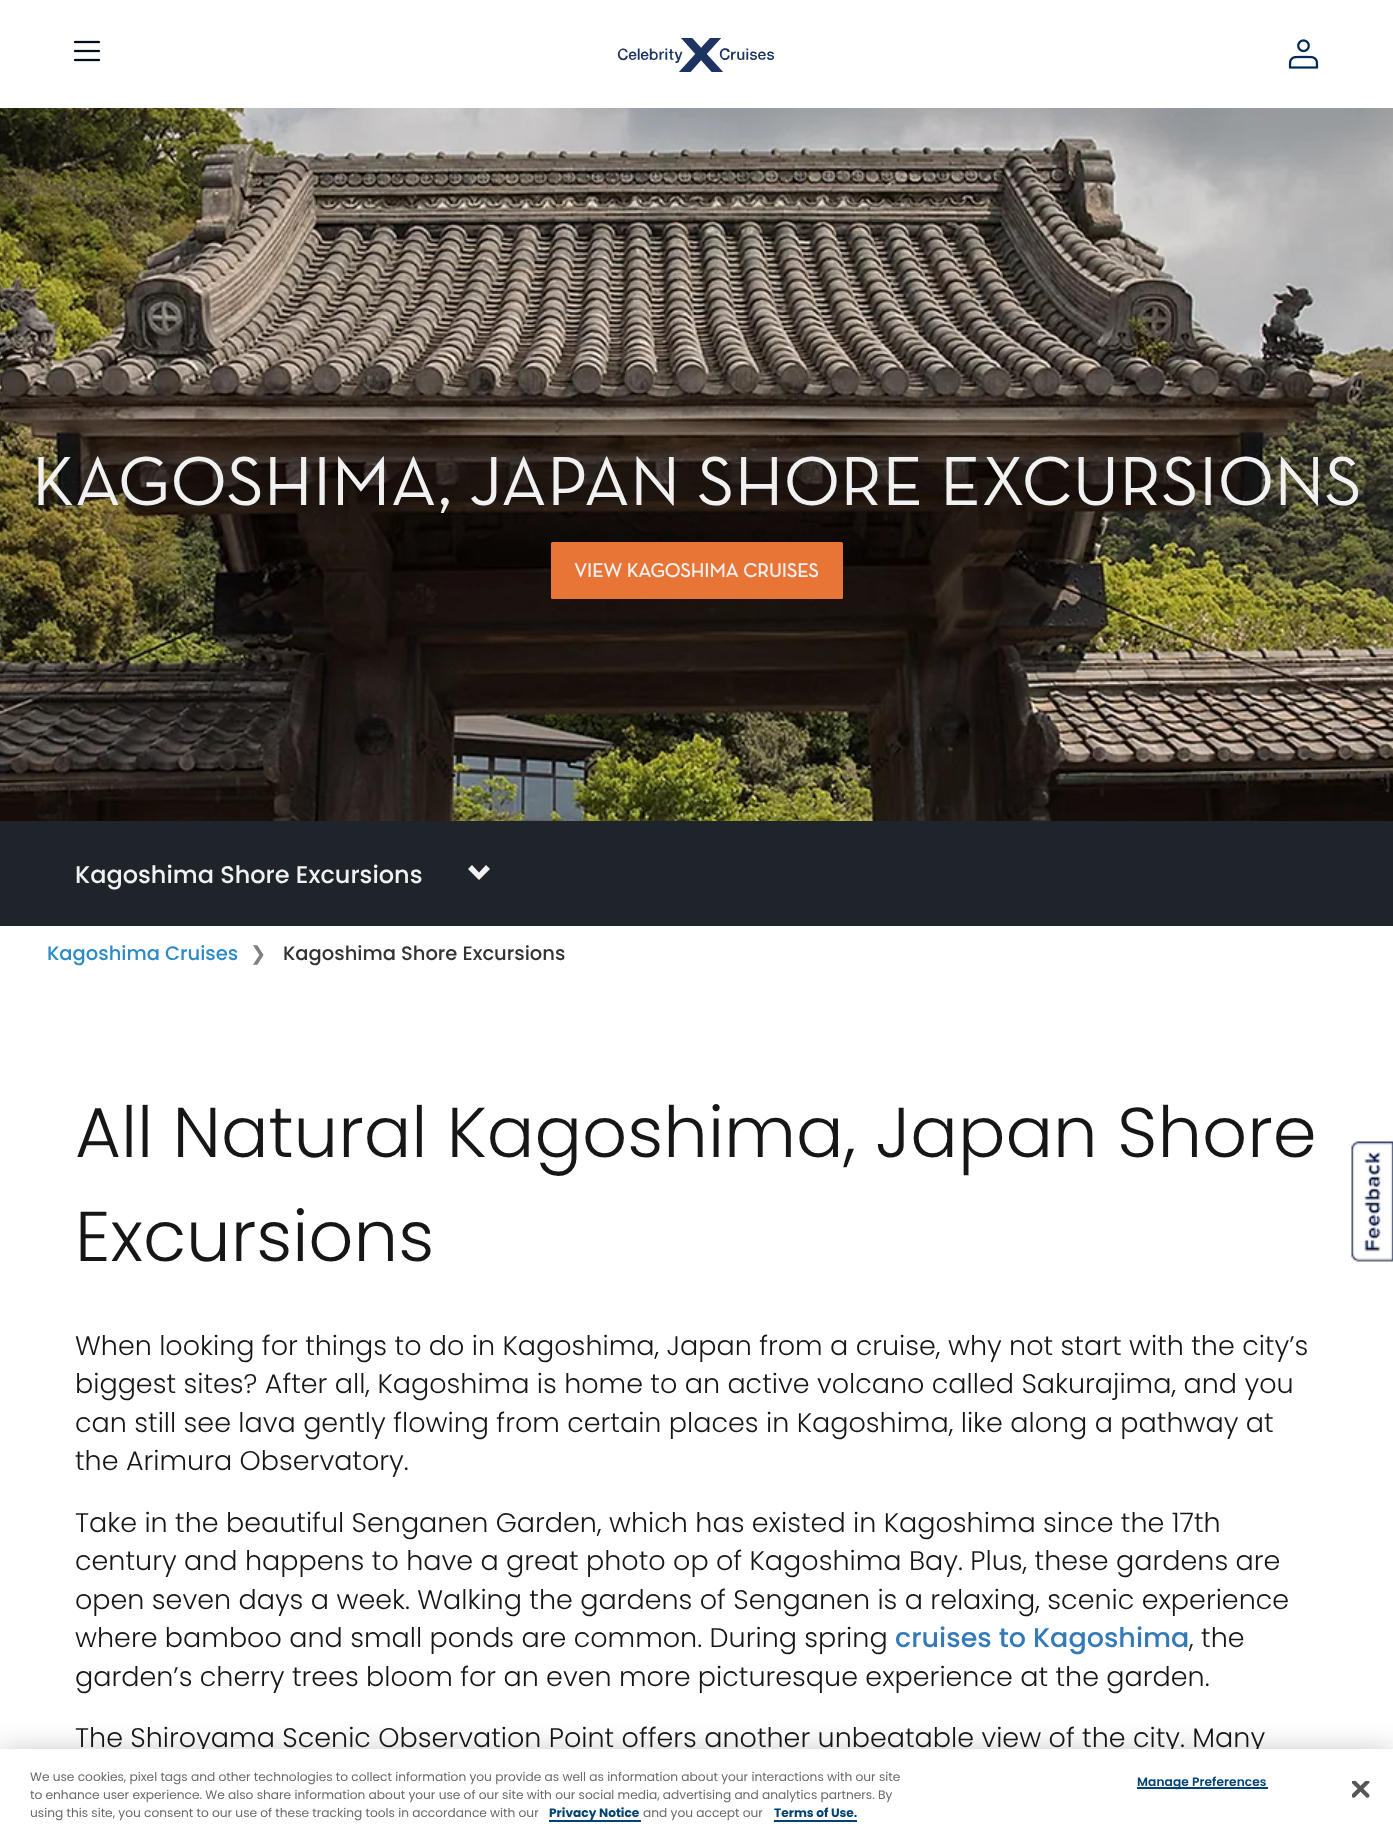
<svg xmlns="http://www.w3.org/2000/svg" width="1393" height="1831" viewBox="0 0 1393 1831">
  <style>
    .t1 { font: 70.5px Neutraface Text; fill: #f1f1f1; }
    .t2 { font: bold 19.5px Neutraface Text; fill: #f1f1f1; }
    .t3 { font: 500 24px Poppins; fill: #f1f1f1; }
    .t4 { font: 500 19.5px Poppins; fill: #2d8ac6; }
    .t5 { font: 19.5px DejaVu Sans; fill: #808080; }
    .t6 { font: 500 19.5px Poppins; fill: #333; }
    .t7 { font: 300 70.5px Poppins; fill: #171616; }
    .t8 { font: 300 27px Poppins; fill: #171616; }
    .t9 { font: 500 27px Poppins; fill: #337ab7; }
    .t10 { font: 12.2px Poppins; fill: #696969; }
    .t11 { font: bold 12.2px Poppins; fill: #004275; }
    .t12 { font: 600 12.2px Poppins; letter-spacing: 0.1px; fill: #004275; }
  </style>
  <rect width="100%" height="100%" fill="#fff"/>
  <image x="73" y="40" width="28" height="22" href="images/1.png"/>
  <image x="617" y="38" width="158" height="34" href="images/2.png"/>
  <image x="1288" y="39" width="31" height="30" href="images/3.png"/>
  <image x="0" y="108" width="1393" height="713" href="images/4.png"/>
  <text x="32" y="505" class="t1">KAGOSHIMA, JAPAN SHORE EXCURSIONS</text>
  <rect x="551" y="542" width="292" height="57" rx="1.5" fill="#e87435"/>
  <text x="574" y="577" class="t2">VIEW KAGOSHIMA CRUISES</text>
  <rect x="0" y="821" width="1393" height="105" fill="#1f242a"/>
  <text x="75" y="883" class="t3">Kagoshima Shore Excursions</text>
  <path d="M490 869L479 880L468 869L472 865L479 872.5L486 865Z" fill="#f1f1f1"/>
  <text x="47" y="960" class="t4">Kagoshima Cruises</text>
  <text x="250" y="960" class="t5">❯</text>
  <text x="283" y="960" class="t6">Kagoshima Shore Excursions</text>
  <text x="75" y="1157" class="t7">All Natural Kagoshima, Japan Shore</text>
  <text x="75" y="1261" class="t7">Excursions</text>
  <text x="75" y="1355" class="t8">When looking for things to do in Kagoshima, Japan from a cruise, why not start with the city’s</text>
  <text x="75" y="1393" class="t8">biggest sites? After all, Kagoshima is home to an active volcano called Sakurajima, and you</text>
  <text x="75" y="1432" class="t8">can still see lava gently flowing from certain places in Kagoshima, like along a pathway at</text>
  <text x="75" y="1470" class="t8">the Arimura Observatory.</text>
  <text x="75" y="1532" class="t8">Take in the beautiful Senganen Garden, which has existed in Kagoshima since the 17th</text>
  <text x="75" y="1570" class="t8">century and happens to have a great photo op of Kagoshima Bay. Plus, these gardens are</text>
  <text x="75" y="1609" class="t8">open seven days a week. Walking the gardens of Senganen is a relaxing, scenic experience</text>
  <text x="75" y="1647" class="t8">where bamboo and small ponds are common. During spring</text>
  <text x="895" y="1647" class="t9">cruises to Kagoshima</text>
  <text x="1189" y="1647" class="t8">, the</text>
  <text x="75" y="1686" class="t8">garden’s cherry trees bloom for an even more picturesque experience at the garden.</text>
  <text x="75" y="1747" class="t8">The Shiroyama Scenic Observation Point offers another unbeatable view of the city. Many</text>
  <image x="1351" y="1141" width="42" height="121" href="images/5.png"/>
  <rect x="0" y="1749" width="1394" height="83" fill="#00000033" filter="blur(13.5px)"/>
  <rect x="0" y="1749" width="1393" height="82" fill="#fff"/>
  <text x="30" y="1781" class="t10">We use cookies, pixel tags and other technologies to collect information you provide as well as information about your interactions with our site</text>
  <text x="30" y="1799" class="t10">to enhance user experience. We also share information about your use of our site with our social media, advertising and analytics partners. By</text>
  <text x="30" y="1817" class="t10">using this site, you consent to our use of these tracking tools in accordance with our</text>
  <rect x="549" y="1820" width="92" height="2" fill="#004275"/>
  <text x="549" y="1817" class="t11">Privacy Notice</text>
  <text x="643" y="1817" class="t10">and you accept our</text>
  <text x="774" y="1817" class="t11">Terms of Use.</text>
  <rect x="774" y="1820" width="83" height="2" fill="#004275"/>
  <rect x="1137" y="1787" width="131" height="2" fill="#004275"/>
  <text x="1137" y="1786" class="t12">Manage Preferences</text>
  <image x="1352" y="1781" width="18" height="17" href="images/6.png"/>
</svg>
